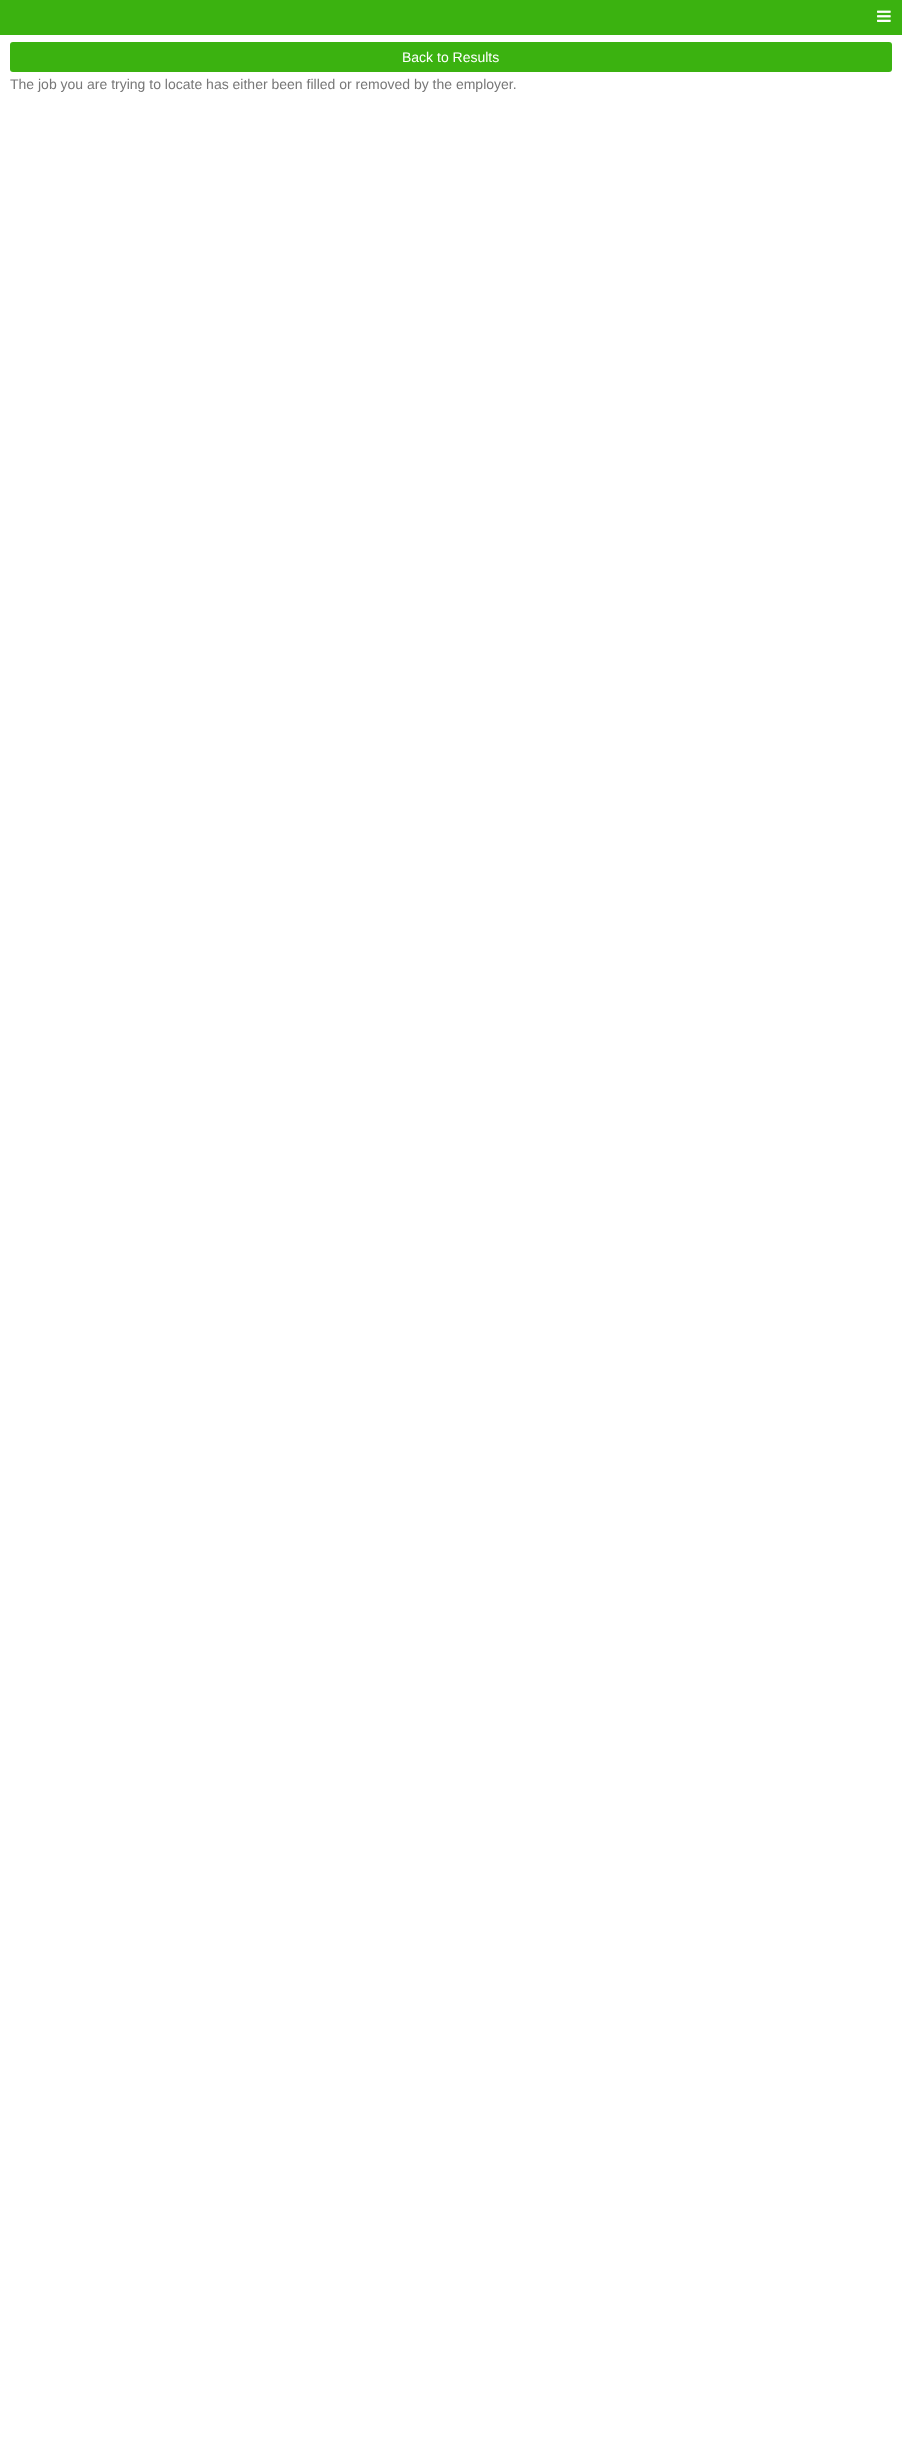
<svg xmlns="http://www.w3.org/2000/svg" width="902" height="2460" viewBox="0 0 902 2460">
  <style>
    .t1 { font: 14px Liberation Sans; fill: #fff; }
    .t2 { font: 14px Liberation Sans; fill: #777; }
  </style>
  <rect width="100%" height="100%" fill="#fff"/>
  <rect x="0" y="0" width="902" height="35" fill="#3bb210"/>
  <image x="877" y="10" width="14" height="12" href="images/1.png"/>
  <rect x="10" y="42" width="882" height="30" rx="3" fill="#3bb210"/>
  <text x="402" y="62" class="t1">Back to Results</text>
  <text x="10" y="89" class="t2">The job you are trying to locate has either been filled or removed by the employer.</text>
</svg>
